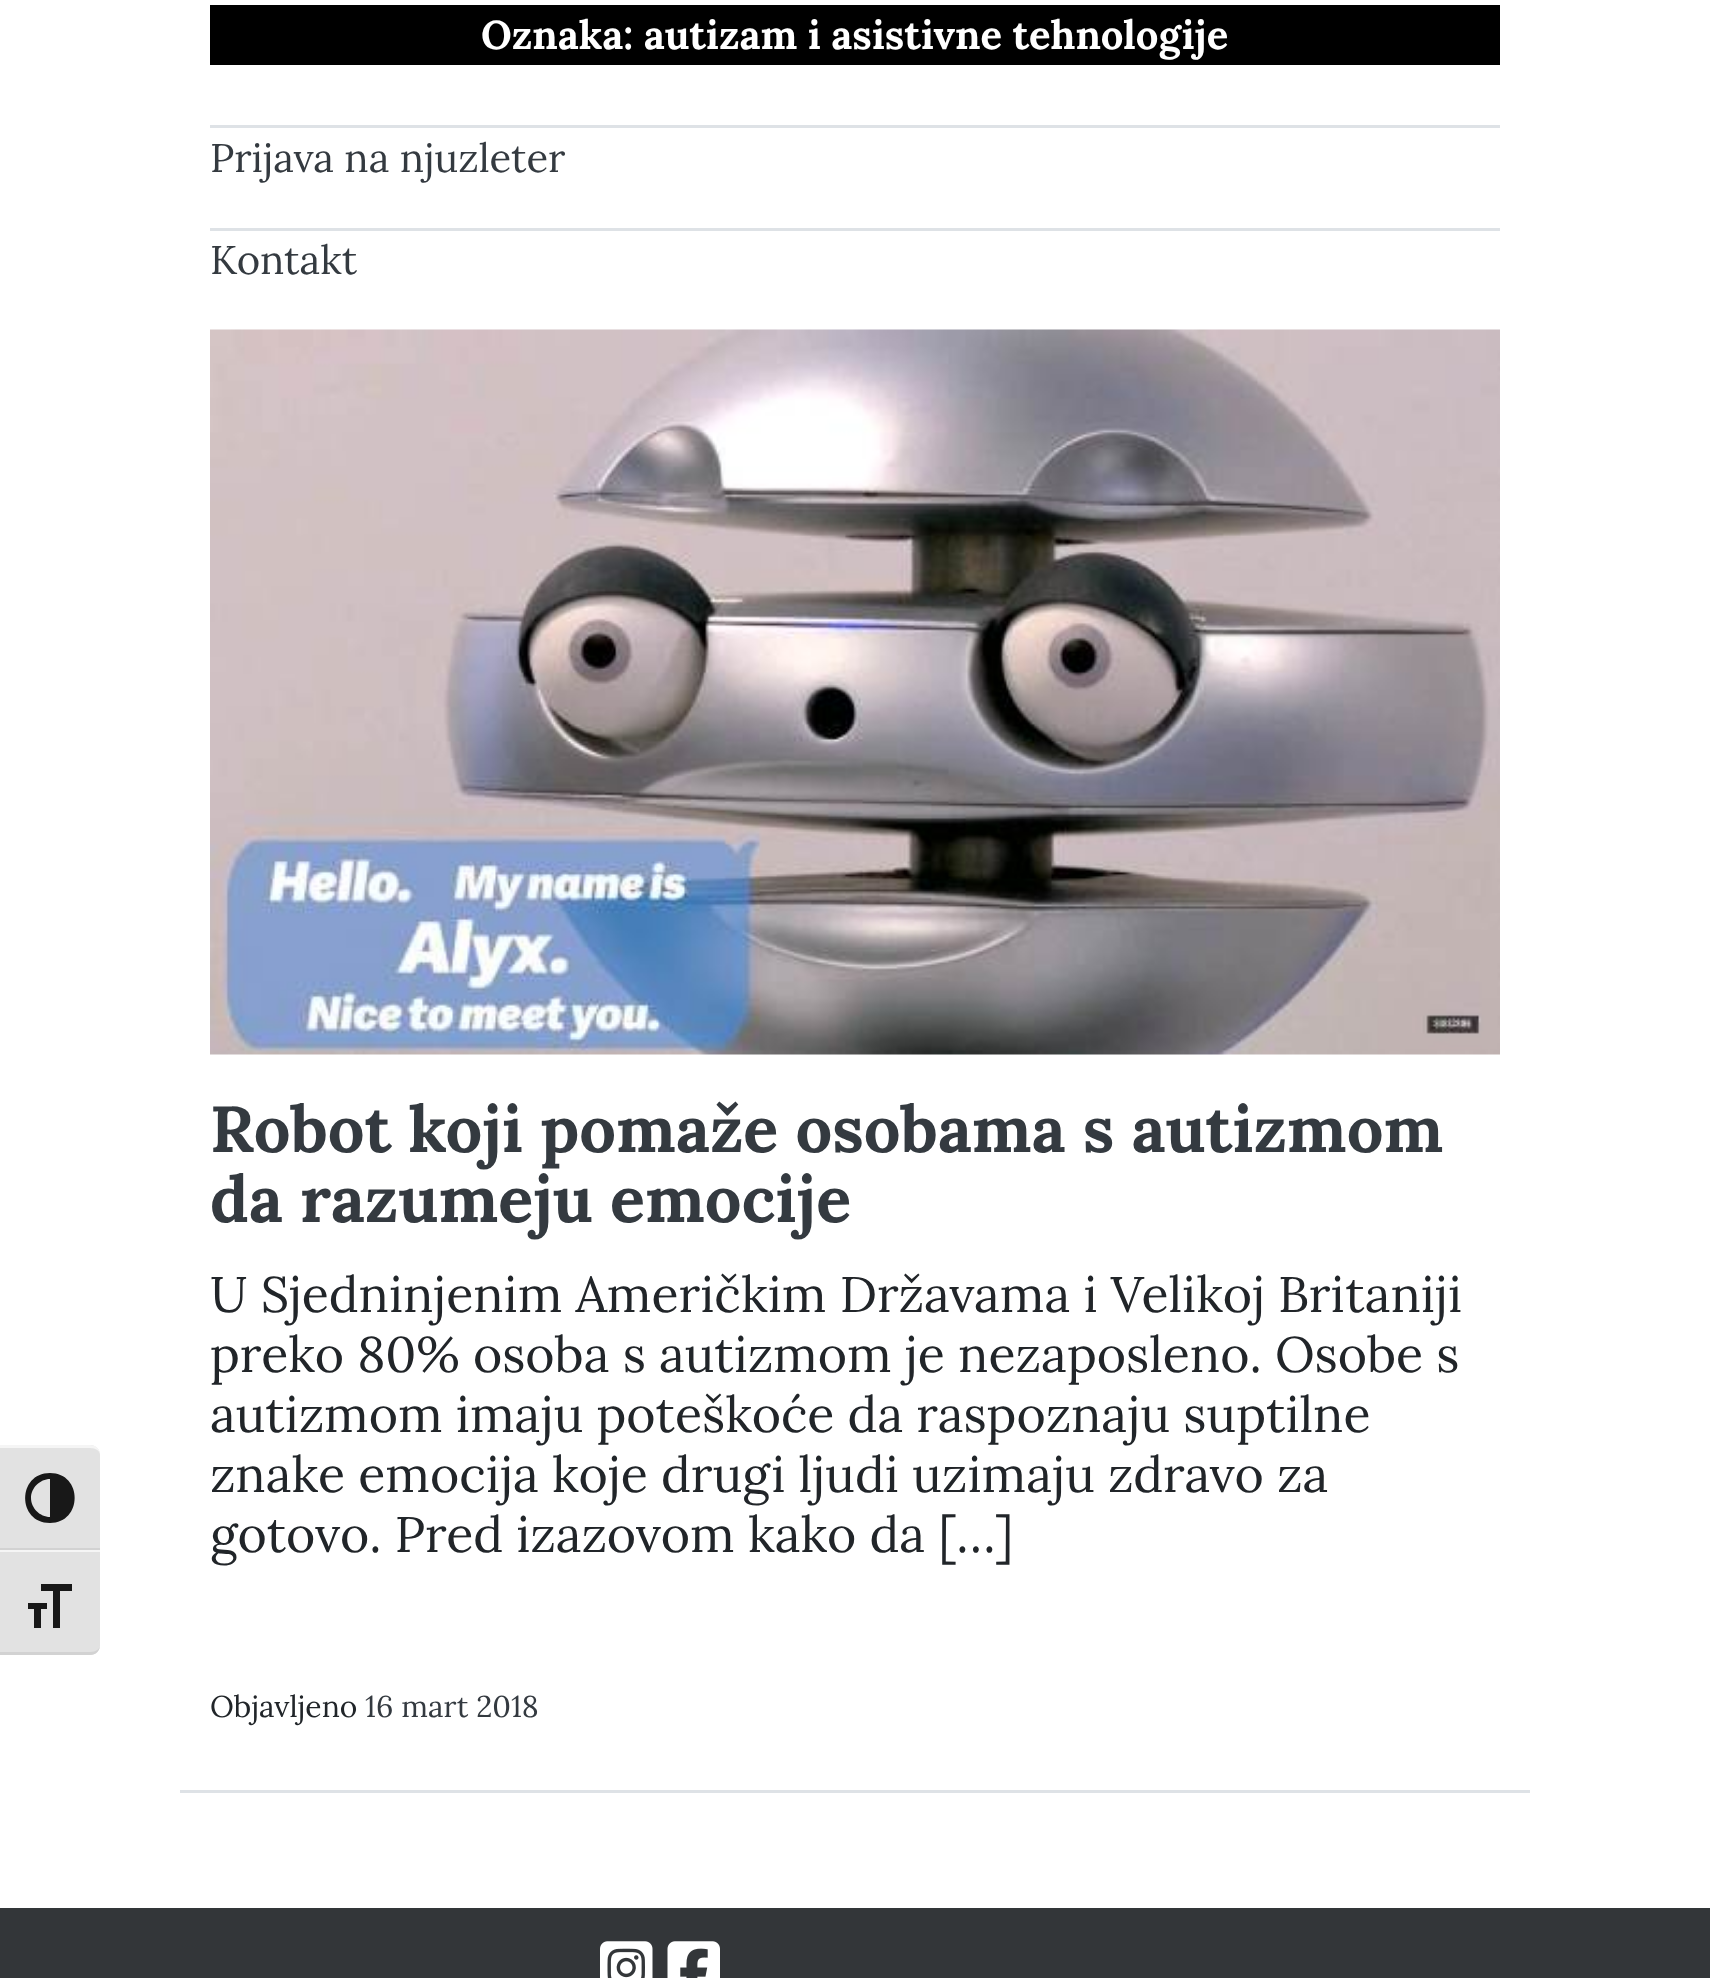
<svg xmlns="http://www.w3.org/2000/svg" width="1710" height="1978" viewBox="0 0 1710 1978">
  <style>
    .t1 { font: bold 40px Lora; fill: #fff; }
    .t2 { font: 40px Lora; fill: #343a40; }
    .t3 { font: bold 65px Lora; fill: #343a40; }
    .t4 { font: 50px Lora; fill: #212529; }
    .t5 { font: 30px Lora; fill: #212529; }
    .t6 { font: 30px Lora; fill: #343a40; }
  </style>
  <rect width="100%" height="100%" fill="#fff"/>
  <path d="M0 1445H90C95.5 1445 100 1449.5 100 1455V1550H0Z" fill="#e2e2e2"/>
  <path d="M0 1445V1448H90C96 1448 100 1451 100 1455C100 1449 96 1445 90 1445Z" fill="#f5f5f5"/>
  <rect x="0" y="1548" width="100" height="2" fill="#d2d2d2"/>
  <path d="M50 1473C17 1473 17 1523 50 1523C83 1523 83 1473 50 1473ZM31 1498C31 1488 40 1479 50 1479V1517C40 1517 31 1508 31 1498Z" fill="#181818"/>
  <path d="M0 1550H100V1645C100 1650.5 95.5 1655 90 1655H0Z" fill="#e2e2e2"/>
  <rect x="0" y="1550" width="100" height="2" fill="#f5f5f5"/>
  <path d="M0 1652V1655H90C96 1655 100 1651 100 1645C100 1649 96 1652 90 1652Z" fill="#d2d2d2"/>
  <path d="M28 1603H47V1609H41V1628H34V1609H28ZM72 1591H60V1628H53V1591H41V1584H72Z" fill="#181818"/>
  <rect x="210" y="5" width="1290" height="60" fill="#000"/>
  <text x="481" y="49" class="t1">Oznaka: autizam i asistivne tehnologije</text>
  <rect x="210" y="125" width="1290" height="3" fill="#dee2e6"/>
  <text x="210" y="172" class="t2">Prijava na njuzleter</text>
  <rect x="210" y="228" width="1290" height="3" fill="#dee2e6"/>
  <text x="210" y="274" class="t2">Kontakt</text>
  <rect x="180" y="1790" width="1350" height="3" fill="#dee2e6"/>
  <image x="210" y="329" width="1290" height="726" href="images/1.png"/>
  <text x="210" y="1152" class="t3">Robot koji pomaže osobama s autizmom</text>
  <text x="210" y="1222" class="t3">da razumeju emocije</text>
  <text x="210" y="1312" class="t4">U Sjedninjenim Američkim Državama i Velikoj Britaniji</text>
  <text x="210" y="1372" class="t4">preko 80% osoba s autizmom je nezaposleno. Osobe s</text>
  <text x="210" y="1432" class="t4">autizmom imaju poteškoće da raspoznaju suptilne</text>
  <text x="210" y="1492" class="t4">znake emocija koje drugi ljudi uzimaju zdravo za</text>
  <text x="210" y="1552" class="t4">gotovo. Pred izazovom kako da […]</text>
  <text x="210" y="1717" class="t5">Objavljeno</text>
  <text x="365" y="1717" class="t6">16 mart 2018</text>
  <rect x="0" y="1908" width="1710" height="70" fill="#333639"/>
  <image x="600" y="1941" width="53" height="37" href="images/2.png"/>
  <image x="667" y="1941" width="53" height="37" href="images/3.png"/>
</svg>
